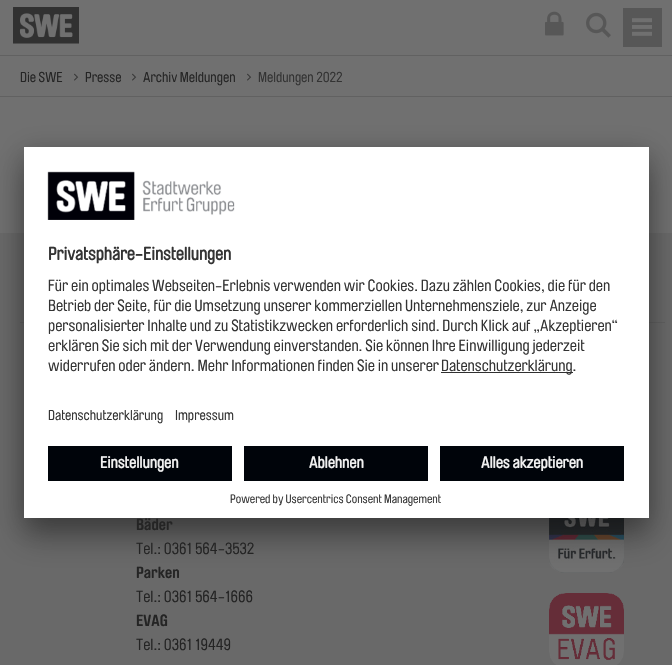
void draw(SkCanvas* canvas) {
	SkPaint paint;
	paint.setAntiAlias(true);
	canvas->clear(0xff707070);
	paint.setColor(0xff616161);
	canvas->drawRect(SkRect::MakeXYWH(0, 55, 672, 1), paint);
	canvas->drawImageRect(SkImages::DeferredFromEncodedData(SkData::MakeFromFileName("img1.png")), SkRect::MakeXYWH(13, 7, 66, 37), SkSamplingOptions());
	canvas->drawImageRect(SkImages::DeferredFromEncodedData(SkData::MakeFromFileName("img2.png")), SkRect::MakeXYWH(545, 11, 19, 25), SkSamplingOptions());
	canvas->drawImageRect(SkImages::DeferredFromEncodedData(SkData::MakeFromFileName("img3.png")), SkRect::MakeXYWH(586, 12, 25, 26), SkSamplingOptions());
	paint.setColor(0xff575757);
	canvas->drawRect(SkRect::MakeXYWH(623, 8, 39, 39), paint);
	canvas->drawImageRect(SkImages::DeferredFromEncodedData(SkData::MakeFromFileName("img4.png")), SkRect::MakeXYWH(632, 18, 20, 18), SkSamplingOptions());
	paint.setColor(0xff616161);
	canvas->drawRect(SkRect::MakeXYWH(0, 96, 672, 1), paint);
	SkFont f1(fontMgr->matchFamilyStyle("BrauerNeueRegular", SkFontStyle::Normal()), 14);
	f1.setSubpixel(true);
	paint.setColor(0xff242424);
	canvas->drawString("Die SWE", 20, 82, f1, paint);
	canvas->drawImageRect(SkImages::DeferredFromEncodedData(SkData::MakeFromFileName("img5.png")), SkRect::MakeXYWH(74, 73, 5, 8), SkSamplingOptions());
	canvas->drawString("Presse", 85, 82, f1, paint);
	canvas->drawImageRect(SkImages::DeferredFromEncodedData(SkData::MakeFromFileName("img5.png")), SkRect::MakeXYWH(132, 73, 5, 8), SkSamplingOptions());
	canvas->drawString("Archiv Meldungen", 143, 82, f1, paint);
	canvas->drawImageRect(SkImages::DeferredFromEncodedData(SkData::MakeFromFileName("img5.png")), SkRect::MakeXYWH(247, 73, 5, 8), SkSamplingOptions());
	paint.setColor(0xff333333);
	canvas->drawString("Meldungen 2022", 258, 82, f1, paint);
	paint.setColor(0xff696969);
	canvas->drawRect(SkRect::MakeXYWH(0, 233, 672, 432), paint);
	paint.setColor(0xff616161);
	canvas->drawRect(SkRect::MakeXYWH(20, 322, 4, 1), paint);
	canvas->drawRect(SkRect::MakeXYWH(649, 322, 16, 1), paint);
	canvas->drawImageRect(SkImages::DeferredFromEncodedData(SkData::MakeFromFileName("img7.png")), SkRect::MakeXYWH(549, 518, 75, 55), SkSamplingOptions());
	paint.setColor(0x4d000000);
	paint.setMaskFilter(SkMaskFilter::MakeBlur(kNormal_SkBlurStyle, 14));
	canvas->drawRect(SkRect::MakeXYWH(24, 167, 625, 371), paint);
	paint.setMaskFilter(nullptr);
	paint.setColor(0x38000000);
	paint.setMaskFilter(SkMaskFilter::MakeBlur(kNormal_SkBlurStyle, 13));
	canvas->drawRect(SkRect::MakeXYWH(24, 152, 625, 371), paint);
	paint.setMaskFilter(nullptr);
	paint.setColor(0xffffffff);
	canvas->drawRect(SkRect::MakeXYWH(24, 147, 625, 371), paint);
	canvas->drawImageRect(SkImages::DeferredFromEncodedData(SkData::MakeFromFileName("img6.png")), SkRect::MakeXYWH(47, 171, 188, 49), SkSamplingOptions());
	SkFont f2(fontMgr->matchFamilyStyle("BrauerNeueRegular", SkFontStyle::Bold()), 18);
	f2.setSubpixel(true);
	paint.setColor(0xff333333);
	canvas->drawString("Privatsphäre-Einstellungen", 48, 260, f2, paint);
	SkFont f3(fontMgr->matchFamilyStyle("BrauerNeueRegular", SkFontStyle::Normal()), 16);
	f3.setSubpixel(true);
	canvas->drawString("Für ein optimales Webseiten-Erlebnis verwenden wir Cookies. Dazu zählen Cookies, die für den", 48, 291, f3, paint);
	canvas->drawString("Betrieb der Seite, für die Umsetzung unserer kommerziellen Unternehmensziele, zur Anzeige", 48, 311, f3, paint);
	canvas->drawString("personalisierter Inhalte und zu Statistikzwecken erforderlich sind. Durch Klick auf „Akzeptieren“", 48, 331, f3, paint);
	canvas->drawString("erklären Sie sich mit der Verwendung einverstanden. Sie können Ihre Einwilligung jederzeit", 48, 351, f3, paint);
	canvas->drawString("widerrufen oder ändern. Mehr Informationen finden Sie in unserer", 48, 371, f3, paint);
	paint.setColor(0xff303030);
	canvas->drawRect(SkRect::MakeXYWH(441, 372, 132, 1), paint);
	paint.setColor(0xff333333);
	canvas->drawString("Datenschutzerklärung.", 441, 371, f3, paint);
	canvas->drawString("Datenschutzerklärung", 48, 420, f1, paint);
	canvas->drawString("Impressum", 175, 420, f1, paint);
	paint.setColor(0xff00040a);
	canvas->drawRect(SkRect::MakeXYWH(48, 446, 184, 35), paint);
	SkFont f4(fontMgr->matchFamilyStyle("BrauerNeueRegular", SkFontStyle::Bold()), 16);
	f4.setSubpixel(true);
	paint.setColor(0xfff1f1f1);
	canvas->drawString("Einstellungen", 100, 468, f4, paint);
	paint.setColor(0xff00040a);
	canvas->drawRect(SkRect::MakeXYWH(244, 446, 184, 35), paint);
	paint.setColor(0xfff1f1f1);
	canvas->drawString("Ablehnen", 309, 468, f4, paint);
	paint.setColor(0xff00040a);
	canvas->drawRect(SkRect::MakeXYWH(440, 446, 184, 35), paint);
	paint.setColor(0xfff1f1f1);
	canvas->drawString("Alles akzeptieren", 481, 468, f4, paint);
	SkFont f5(fontMgr->matchFamilyStyle("BrauerNeueRegular", SkFontStyle::Normal()), 12);
	f5.setSubpixel(true);
	paint.setColor(0xff333333);
	canvas->drawString("Powered by Usercentrics Consent Management", 230, 503, f5, paint);
	SkFont f6(fontMgr->matchFamilyStyle("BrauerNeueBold", SkFontStyle::Bold()), 16);
	f6.setSubpixel(true);
	paint.setColor(0xff242424);
	canvas->drawString("Bäder", 136, 530, f6, paint);
	canvas->drawString("Tel.: 0361 564-3532", 136, 554, f3, paint);
	canvas->drawString("Parken", 136, 578, f6, paint);
	canvas->drawString("Tel.: 0361 564-1666", 136, 602, f3, paint);
	canvas->drawString("EVAG", 136, 626, f6, paint);
	canvas->drawString("Tel.: 0361 19449", 136, 650, f3, paint);
	canvas->drawImageRect(SkImages::DeferredFromEncodedData(SkData::MakeFromFileName("img8.png")), SkRect::MakeXYWH(549, 593, 75, 72), SkSamplingOptions());
}
